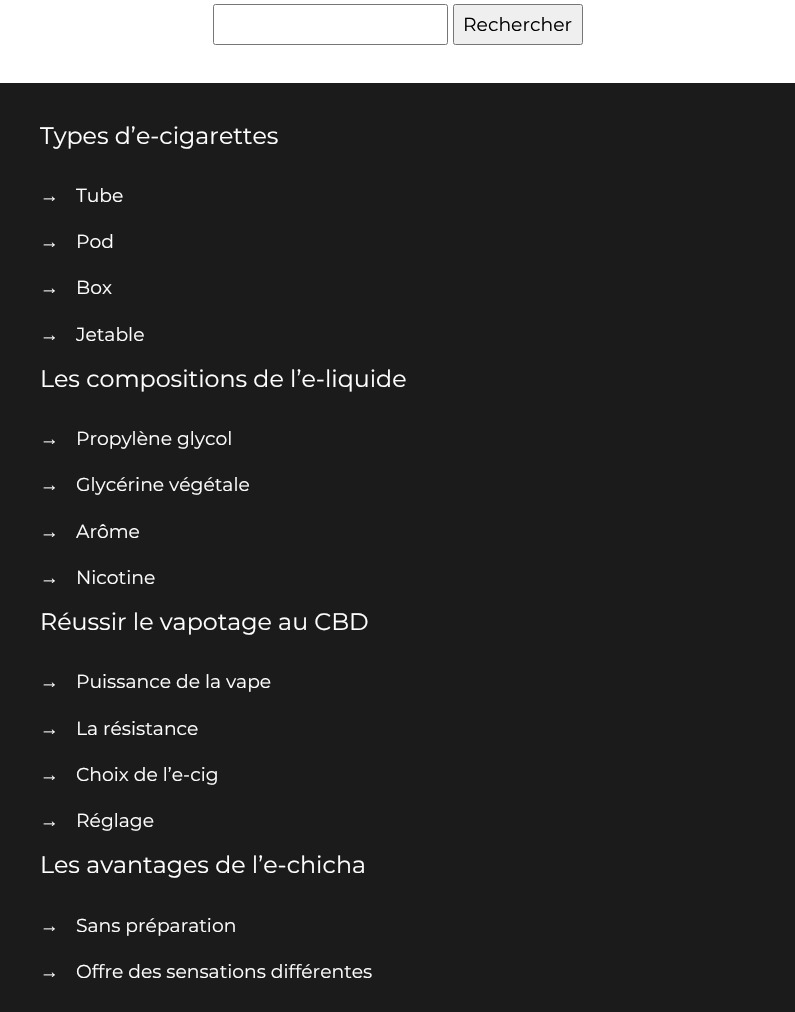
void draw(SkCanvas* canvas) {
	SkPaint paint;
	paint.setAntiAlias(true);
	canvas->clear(0xffffffff);
	paint.setStroke(true);
	paint.setStrokeWidth(1);
	paint.setColor(0xff767676);
	canvas->drawRoundRect(SkRect::MakeXYWH(213.5, 4.5, 234, 40), 2, 2, paint);
	paint.setStroke(false);
	paint.setColor(0xffefefef);
	canvas->drawRoundRect(SkRect::MakeXYWH(453.5, 4.5, 129, 40), 2, 2, paint);
	paint.setStroke(true);
	paint.setColor(0xff767676);
	canvas->drawRoundRect(SkRect::MakeXYWH(453.5, 4.5, 129, 40), 2, 2, paint);
	SkFont f1(fontMgr->matchFamilyStyle("Montserrat", SkFontStyle(100, SkFontStyle::kNormal_Width, SkFontStyle::kUpright_Slant)), 18.75);
	f1.setSubpixel(true);
	paint.setStroke(false);
	paint.setColor(0xff000000);
	canvas->drawString("Rechercher", 463, 31, f1, paint);
	paint.setColor(0xff1b1b1b);
	canvas->drawRect(SkRect::MakeXYWH(0, 83, 795, 929), paint);
	SkFont f2(fontMgr->matchFamilyStyle("Montserrat", SkFontStyle(100, SkFontStyle::kNormal_Width, SkFontStyle::kUpright_Slant)), 23.75);
	f2.setSubpixel(true);
	paint.setColor(0xffffffff);
	canvas->drawString("Types d’e-cigarettes", 40, 144, f2, paint);
	SkFont f3(fontMgr->matchFamilyStyle("Liberation Sans", SkFontStyle::Normal()), 18.75);
	f3.setSubpixel(true);
	canvas->drawString("→", 40, 202, f3, paint);
	canvas->drawString("Tube", 76, 202, f1, paint);
	canvas->drawString("→", 40, 248, f3, paint);
	canvas->drawString("Pod", 76, 248, f1, paint);
	canvas->drawString("→", 40, 294, f3, paint);
	canvas->drawString("Box", 76, 294, f1, paint);
	canvas->drawString("→", 40, 341, f3, paint);
	canvas->drawString("Jetable", 76, 341, f1, paint);
	canvas->drawString("Les compositions de l’e-liquide", 40, 387, f2, paint);
	canvas->drawString("→", 40, 445, f3, paint);
	canvas->drawString("Propylène glycol", 76, 445, f1, paint);
	canvas->drawString("→", 40, 491, f3, paint);
	canvas->drawString("Glycérine végétale", 76, 491, f1, paint);
	canvas->drawString("→", 40, 538, f3, paint);
	canvas->drawString("Arôme", 76, 538, f1, paint);
	canvas->drawString("→", 40, 584, f3, paint);
	canvas->drawString("Nicotine", 76, 584, f1, paint);
	canvas->drawString("Réussir le vapotage au CBD", 40, 630, f2, paint);
	canvas->drawString("→", 40, 688, f3, paint);
	canvas->drawString("Puissance de la vape", 76, 688, f1, paint);
	canvas->drawString("→", 40, 735, f3, paint);
	canvas->drawString("La résistance", 76, 735, f1, paint);
	canvas->drawString("→", 40, 781, f3, paint);
	canvas->drawString("Choix de l’e-cig", 76, 781, f1, paint);
	canvas->drawString("→", 40, 827, f3, paint);
	canvas->drawString("Réglage", 76, 827, f1, paint);
	canvas->drawString("Les avantages de l’e-chicha", 40, 873, f2, paint);
	canvas->drawString("→", 40, 932, f3, paint);
	canvas->drawString("Sans préparation", 76, 932, f1, paint);
	canvas->drawString("→", 40, 978, f3, paint);
	canvas->drawString("Offre des sensations différentes", 76, 978, f1, paint);
}
